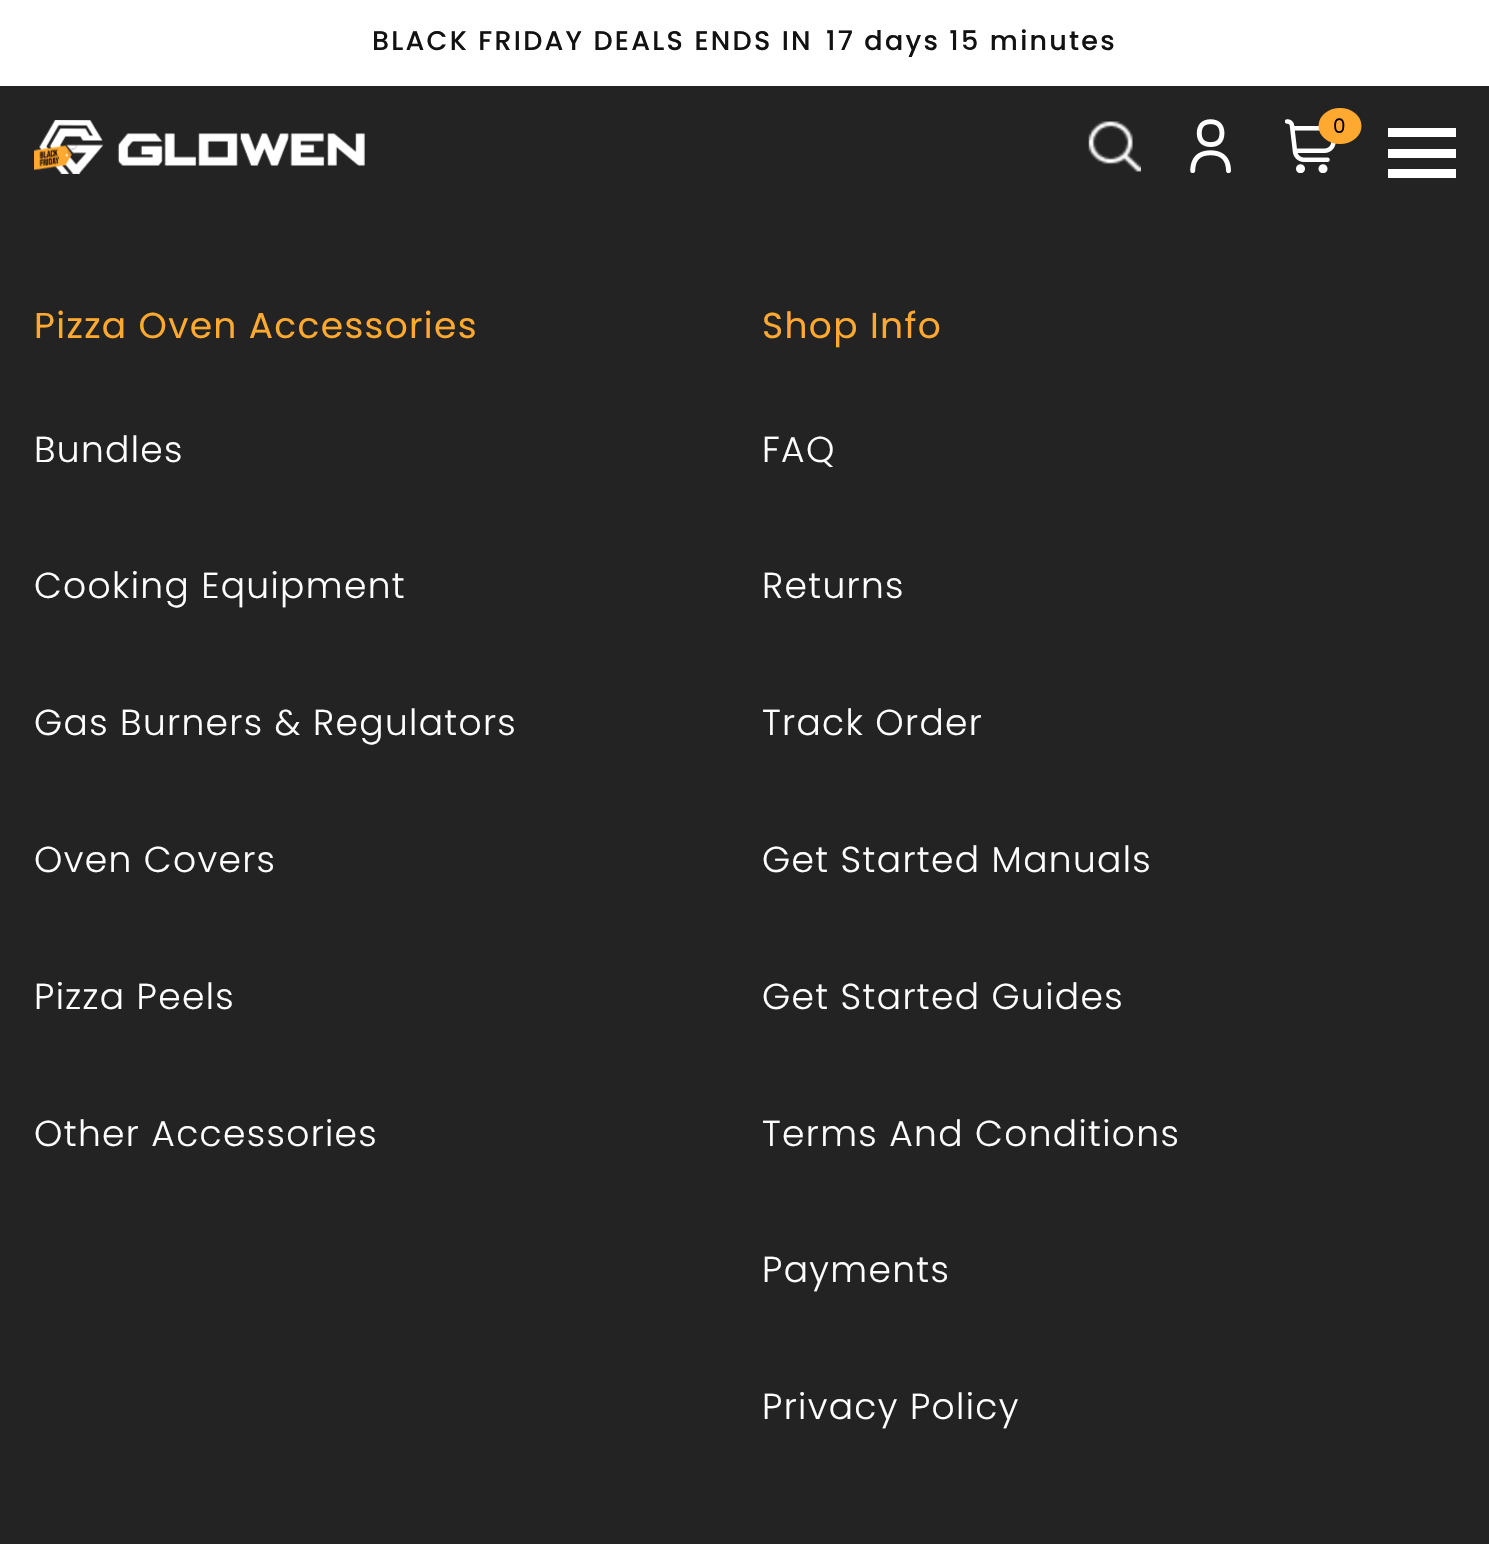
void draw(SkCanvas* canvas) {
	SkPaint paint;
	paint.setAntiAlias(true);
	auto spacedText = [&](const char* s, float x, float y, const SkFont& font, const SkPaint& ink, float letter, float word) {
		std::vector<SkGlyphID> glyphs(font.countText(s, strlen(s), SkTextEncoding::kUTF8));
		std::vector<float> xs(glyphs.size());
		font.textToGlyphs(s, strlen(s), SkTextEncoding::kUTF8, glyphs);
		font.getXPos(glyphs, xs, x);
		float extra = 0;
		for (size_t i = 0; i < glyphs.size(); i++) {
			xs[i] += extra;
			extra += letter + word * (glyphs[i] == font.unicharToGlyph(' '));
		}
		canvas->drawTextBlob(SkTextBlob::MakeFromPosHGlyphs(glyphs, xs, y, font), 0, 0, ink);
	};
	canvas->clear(0xff232323);
	paint.setColor(0xffffffff);
	canvas->drawRect(SkRect::MakeXYWH(0, 0, 1489, 86), paint);
	SkFont f1(fontMgr->matchFamilyStyle("Poppins", SkFontStyle(500, SkFontStyle::kNormal_Width, SkFontStyle::kUpright_Slant)), 27);
	f1.setSubpixel(true);
	paint.setColor(0xff121212);
	spacedText("BLACK FRIDAY DEALS ENDS IN", 372, 50, f1, paint, 2.25, 0);
	spacedText("17 days 15 minutes", 826, 50, f1, paint, 2.25, 0);
	canvas->drawImageRect(SkImages::DeferredFromEncodedData(SkData::MakeFromFileName("img1.png")), SkRect::MakeXYWH(34, 120, 331, 54), SkSamplingOptions());
	canvas->drawImageRect(SkImages::DeferredFromEncodedData(SkData::MakeFromFileName("img2.png")), SkRect::MakeXYWH(1088, 121, 53, 51), SkSamplingOptions());
	canvas->drawImageRect(SkImages::DeferredFromEncodedData(SkData::MakeFromFileName("img3.png")), SkRect::MakeXYWH(1190, 119, 41, 54), SkSamplingOptions());
	canvas->drawImageRect(SkImages::DeferredFromEncodedData(SkData::MakeFromFileName("img4.png")), SkRect::MakeXYWH(1285, 119, 51, 54), SkSamplingOptions());
	paint.setColor(0xffffa930);
	canvas->drawOval(SkRect::MakeXYWH(1318.5, 108, 43, 36), paint);
	SkFont f2(fontMgr->matchFamilyStyle("Poppins", SkFontStyle::Normal()), 20);
	f2.setSubpixel(true);
	paint.setColor(0xff000000);
	spacedText("0", 1333, 133, f2, paint, 1.35, 0);
	paint.setColor(0xffffffff);
	canvas->drawRect(SkRect::MakeXYWH(1388, 128, 68, 9), paint);
	canvas->drawRect(SkRect::MakeXYWH(1388, 149, 68, 9), paint);
	canvas->drawRect(SkRect::MakeXYWH(1388, 169, 68, 9), paint);
	SkFont f3(fontMgr->matchFamilyStyle("Poppins", SkFontStyle::Normal()), 36);
	f3.setSubpixel(true);
	paint.setColor(0xffffa930);
	spacedText("Pizza Oven Accessories", 34, 338, f3, paint, 1.35, 0);
	SkFont f4(fontMgr->matchFamilyStyle("Poppins", SkFontStyle(300, SkFontStyle::kNormal_Width, SkFontStyle::kUpright_Slant)), 36);
	f4.setSubpixel(true);
	paint.setColor(0xffffffff);
	spacedText("Bundles", 34, 462, f4, paint, 1.35, 0);
	spacedText("Cooking Equipment", 34, 598, f4, paint, 1.35, 0);
	spacedText("Gas Burners & Regulators", 34, 735, f4, paint, 1.35, 0);
	spacedText("Oven Covers", 34, 872, f4, paint, 1.35, 0);
	spacedText("Pizza Peels", 34, 1009, f4, paint, 1.35, 0);
	spacedText("Other Accessories", 34, 1146, f4, paint, 1.35, 0);
	paint.setColor(0xffffa930);
	spacedText("Shop Info", 762, 338, f3, paint, 1.35, 0);
	paint.setColor(0xffffffff);
	spacedText("FAQ", 762, 462, f4, paint, 1.35, 0);
	spacedText("Returns", 762, 598, f4, paint, 1.35, 0);
	spacedText("Track Order", 762, 735, f4, paint, 1.35, 0);
	spacedText("Get Started Manuals", 762, 872, f4, paint, 1.35, 0);
	spacedText("Get Started Guides", 762, 1009, f4, paint, 1.35, 0);
	spacedText("Terms And Conditions", 762, 1146, f4, paint, 1.35, 0);
	spacedText("Payments", 762, 1282, f4, paint, 1.35, 0);
	spacedText("Privacy Policy", 762, 1419, f4, paint, 1.35, 0);
}
